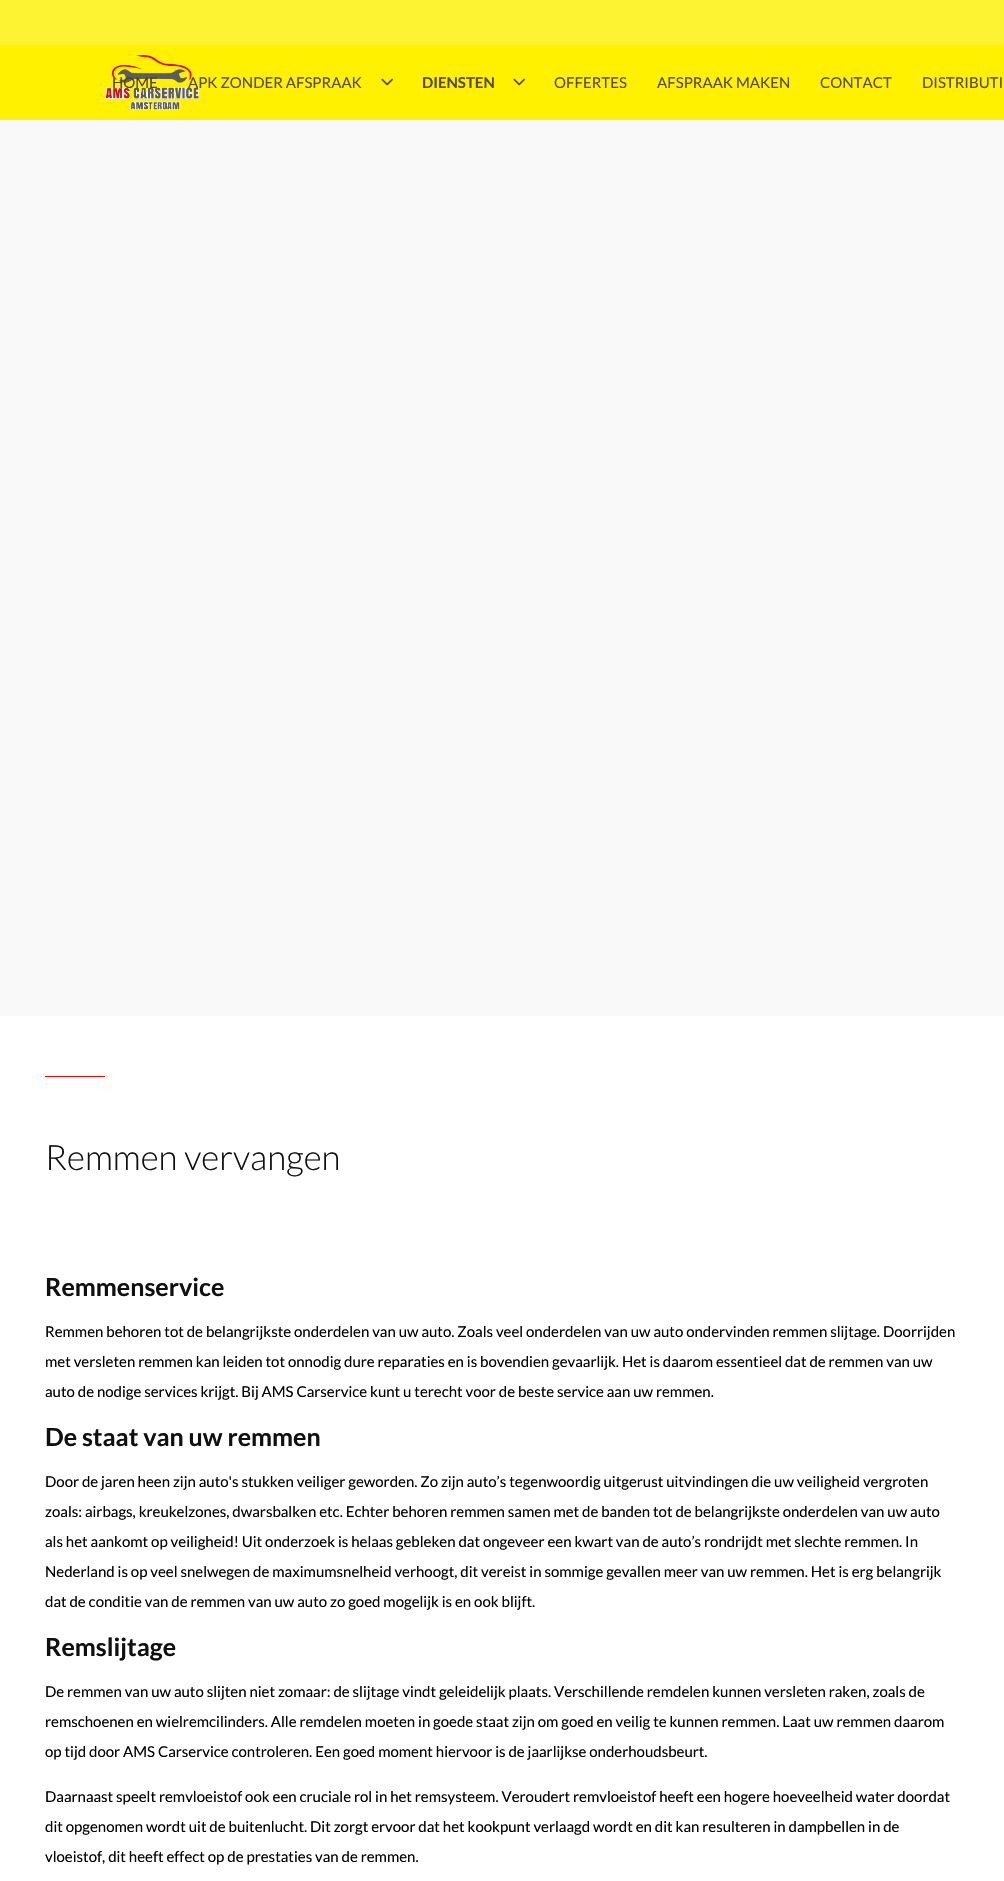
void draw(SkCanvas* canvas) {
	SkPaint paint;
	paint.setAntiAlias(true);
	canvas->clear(0xffffffff);
	paint.setColor(0xfffef332);
	canvas->drawRect(SkRect::MakeXYWH(0, 0, 1004, 45), paint);
	paint.setColor(0xfffff100);
	canvas->drawRect(SkRect::MakeXYWH(0, 45, 1004, 75), paint);
	canvas->drawImageRect(SkImages::DeferredFromEncodedData(SkData::MakeFromFileName("img1.png")), SkRect::MakeXYWH(105, 55, 94, 55), SkSamplingOptions());
	SkFont f1(fontMgr->matchFamilyStyle("Lato", SkFontStyle::Normal()), 15);
	f1.setSubpixel(true);
	paint.setColor(0xff4d431f);
	canvas->drawString("HOME", 112, 88, f1, paint);
	paint.setColor(0xff544a1a);
	canvas->drawString("APK ZONDER AFSPRAAK", 188, 88, f1, paint);
	canvas->drawImageRect(SkImages::DeferredFromEncodedData(SkData::MakeFromFileName("img2.png")), SkRect::MakeXYWH(381, 78, 12, 8), SkSamplingOptions());
	SkFont f2(fontMgr->matchFamilyStyle("Lato", SkFontStyle::Bold()), 15);
	f2.setSubpixel(true);
	canvas->drawString("DIENSTEN", 422, 88, f2, paint);
	canvas->drawImageRect(SkImages::DeferredFromEncodedData(SkData::MakeFromFileName("img2.png")), SkRect::MakeXYWH(513, 78, 12, 8), SkSamplingOptions());
	canvas->drawString("OFFERTES", 554, 88, f1, paint);
	canvas->drawString("AFSPRAAK MAKEN", 657, 88, f1, paint);
	canvas->drawString("CONTACT", 820, 88, f1, paint);
	canvas->drawString("DISTRIBUTI", 922, 88, f1, paint);
	paint.setColor(0xfff9f9f9);
	canvas->drawRect(SkRect::MakeXYWH(0, 120, 1004, 896), paint);
	paint.setColor(0xffff0505);
	canvas->drawRect(SkRect::MakeXYWH(45, 1076, 60, 1), paint);
	SkFont f3(fontMgr->matchFamilyStyle("Lato", SkFontStyle(300, SkFontStyle::kNormal_Width, SkFontStyle::kUpright_Slant)), 35);
	f3.setSubpixel(true);
	paint.setColor(0xff101010);
	canvas->drawString("Remmen vervangen", 45, 1170, f3, paint);
	SkFont f4(fontMgr->matchFamilyStyle("Lato", SkFontStyle::Bold()), 25);
	f4.setSubpixel(true);
	canvas->drawString("Remmenservice", 45, 1296, f4, paint);
	paint.setColor(0xff000000);
	canvas->drawString("Remmen behoren tot de belangrijkste onderdelen van uw auto. Zoals veel onderdelen van uw auto ondervinden remmen slijtage. Doorrijden", 45, 1337, f1, paint);
	canvas->drawString("met versleten remmen kan leiden tot onnodig dure reparaties en is bovendien gevaarlijk. Het is daarom essentieel dat de remmen van uw", 45, 1367, f1, paint);
	canvas->drawString("auto de nodige services krijgt. Bij AMS Carservice kunt u terecht voor de beste service aan uw remmen.", 45, 1397, f1, paint);
	paint.setColor(0xff101010);
	canvas->drawString("De staat van uw remmen", 45, 1446, f4, paint);
	paint.setColor(0xff000000);
	canvas->drawString("Door de jaren heen zijn auto's stukken veiliger geworden. Zo zijn auto’s tegenwoordig uitgerust uitvindingen die uw veiligheid vergroten", 45, 1487, f1, paint);
	canvas->drawString("zoals: airbags, kreukelzones, dwarsbalken etc. Echter behoren remmen samen met de banden tot de belangrijkste onderdelen van uw auto", 45, 1517, f1, paint);
	canvas->drawString("als het aankomt op veiligheid! Uit onderzoek is helaas gebleken dat ongeveer een kwart van de auto’s rondrijdt met slechte remmen. In", 45, 1547, f1, paint);
	canvas->drawString("Nederland is op veel snelwegen de maximumsnelheid verhoogt, dit vereist in sommige gevallen meer van uw remmen. Het is erg belangrijk", 45, 1577, f1, paint);
	canvas->drawString("dat de conditie van de remmen van uw auto zo goed mogelijk is en ook blijft.", 45, 1607, f1, paint);
	paint.setColor(0xff101010);
	canvas->drawString("Remslijtage", 45, 1656, f4, paint);
	paint.setColor(0xff000000);
	canvas->drawString("De remmen van uw auto slijten niet zomaar: de slijtage vindt geleidelijk plaats. Verschillende remdelen kunnen versleten raken, zoals de", 45, 1697, f1, paint);
	canvas->drawString("remschoenen en wielremcilinders. Alle remdelen moeten in goede staat zijn om goed en veilig te kunnen remmen. Laat uw remmen daarom", 45, 1727, f1, paint);
	canvas->drawString("op tijd door AMS Carservice controleren. Een goed moment hiervoor is de jaarlijkse onderhoudsbeurt.", 45, 1757, f1, paint);
	canvas->drawString("Daarnaast speelt remvloeistof ook een cruciale rol in het remsysteem. Veroudert remvloeistof heeft een hogere hoeveelheid water doordat", 45, 1802, f1, paint);
	canvas->drawString("dit opgenomen wordt uit de buitenlucht. Dit zorgt ervoor dat het kookpunt verlaagd wordt en dit kan resulteren in dampbellen in de", 45, 1832, f1, paint);
	canvas->drawString("vloeistof, dit heeft effect op de prestaties van de remmen.", 45, 1862, f1, paint);
}
